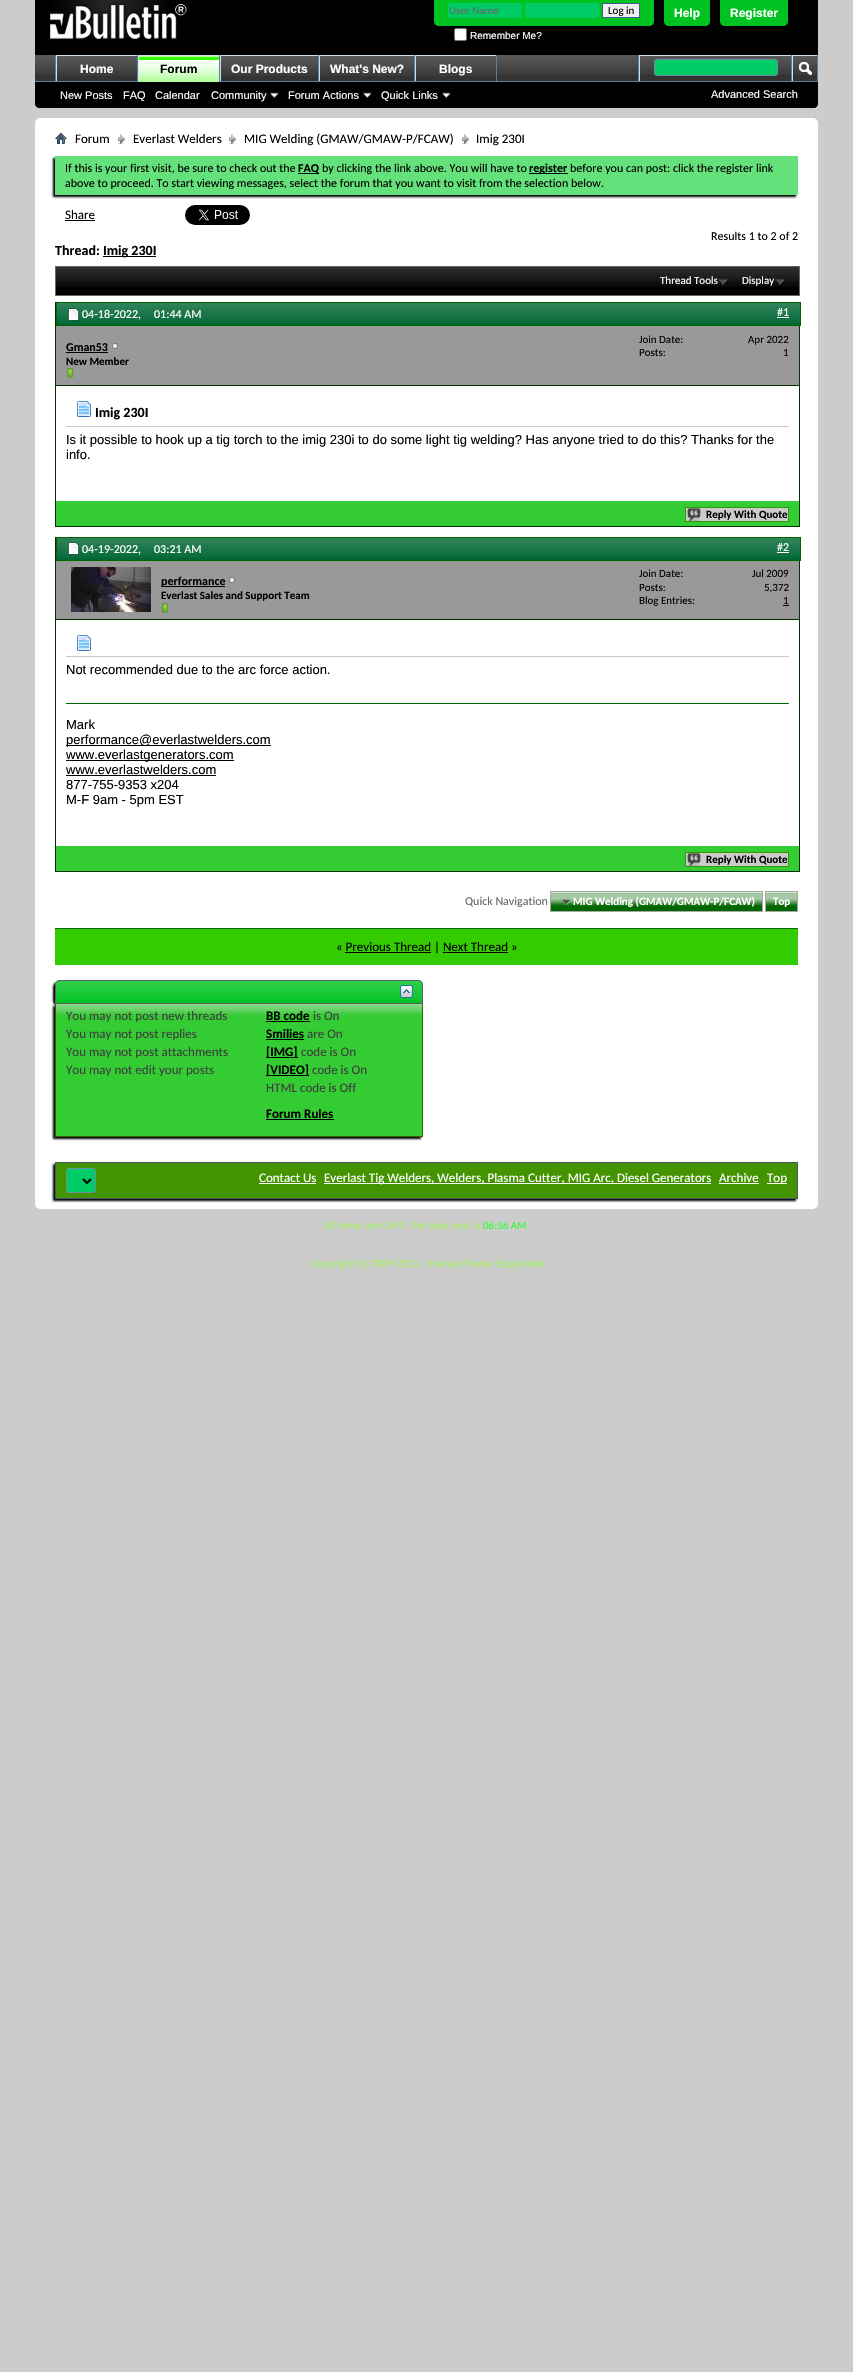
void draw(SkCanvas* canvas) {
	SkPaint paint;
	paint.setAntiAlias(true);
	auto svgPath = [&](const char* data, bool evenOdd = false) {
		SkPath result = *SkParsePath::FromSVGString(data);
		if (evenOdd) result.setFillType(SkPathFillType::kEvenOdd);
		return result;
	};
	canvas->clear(0xffcccccc);
	paint.setColor(0xff000000);
	canvas->drawPath(svgPath("M35 0H818V103C818 106 816 108 813 108H40C37 108 35 106 35 103Z"), paint);
	canvas->drawImageRect(SkImages::DeferredFromEncodedData(SkData::MakeFromFileName("img1.png")), SkRect::MakeXYWH(50, 0, 137, 39), SkSamplingOptions());
	paint.setColor(0xff00c322);
	canvas->drawPath(svgPath("M434 0H654V21C654 24 652 26 649 26H439C436 26 434 24 434 21Z"), paint);
	paint.setColor(0xff00cc66);
	canvas->drawRoundRect(SkRect::MakeXYWH(448, 3, 74, 15), 3, 3, paint);
	SkFont f1(fontMgr->matchFamilyStyle("Carlito", SkFontStyle::Normal()), 11);
	f1.setSubpixel(true);
	paint.setColor(0xff666666);
	canvas->drawString("User Name", 449, 14, f1, paint);
	paint.setColor(0xff00cc66);
	canvas->drawRoundRect(SkRect::MakeXYWH(525, 3, 74, 15), 3, 3, paint);
	paint.setColor(0xffefefef);
	canvas->drawRect(SkRect::MakeXYWH(602.5, 3.5, 37, 14), paint);
	paint.setStroke(true);
	paint.setStrokeWidth(1);
	paint.setColor(0xff415d8d);
	canvas->drawRect(SkRect::MakeXYWH(602.5, 3.5, 37, 14), paint);
	paint.setStroke(false);
	paint.setColor(0xff000000);
	canvas->drawString("Log in", 608, 14, f1, paint);
	paint.setColor(0xffffffff);
	canvas->drawRoundRect(SkRect::MakeXYWH(454.5, 28.5, 12, 12), 1.5, 1.5, paint);
	paint.setStroke(true);
	paint.setColor(0xff767676);
	canvas->drawRoundRect(SkRect::MakeXYWH(454.5, 28.5, 12, 12), 1.5, 1.5, paint);
	SkFont f2(fontMgr->matchFamilyStyle("Liberation Sans", SkFontStyle::Normal()), 10);
	f2.setSubpixel(true);
	paint.setStroke(false);
	paint.setColor(0xffffffff);
	canvas->drawString("Remember Me?", 470, 39, f2, paint);
	paint.setColor(0xff00c322);
	canvas->drawPath(svgPath("M664 0H710V21C710 24 708 26 705 26H669C666 26 664 24 664 21Z"), paint);
	SkFont f3(fontMgr->matchFamilyStyle("Liberation Sans", SkFontStyle::Bold()), 12);
	f3.setSubpixel(true);
	paint.setColor(0xffffffff);
	canvas->drawString("Help", 674, 17, f3, paint);
	paint.setColor(0xff00c322);
	canvas->drawPath(svgPath("M720 0H788V21C788 24 786 26 783 26H725C722 26 720 24 720 21Z"), paint);
	paint.setColor(0xffffffff);
	canvas->drawString("Register", 730, 17, f3, paint);
	paint.setColor(0xff000000);
	canvas->drawPath(svgPath("M35 55H818V103C818 106 816 108 813 108H40C37 108 35 106 35 103Z"), paint);
	paint.setColor(0xff333333);
	canvas->drawRect(SkRect::MakeXYWH(35, 55, 782, 26), paint);
	canvas->drawImageRect(SkImages::DeferredFromEncodedData(SkData::MakeFromFileName("img2.png")), SkRect::MakeXYWH(35, 55, 782, 20), SkSamplingOptions());
	paint.setColor(0xff5a7f97);
	canvas->drawRect(SkRect::MakeXYWH(137, 55, 1, 27), paint);
	canvas->drawRect(SkRect::MakeXYWH(55, 55, 1, 27), paint);
	paint.setColor(0xff333333);
	canvas->drawRect(SkRect::MakeXYWH(57, 56, 80, 19), paint);
	canvas->drawImageRect(SkImages::DeferredFromEncodedData(SkData::MakeFromFileName("img3.png")), SkRect::MakeXYWH(57, 56, 80, 20), SkSamplingOptions());
	paint.setColor(0xffcedfeb);
	canvas->drawRect(SkRect::MakeXYWH(56, 55, 81, 1), paint);
	canvas->drawRect(SkRect::MakeXYWH(56, 55, 1, 27), paint);
	paint.setColor(0xffffffff);
	canvas->drawString("Home", 80, 73, f3, paint);
	paint.setColor(0xff5a7f97);
	canvas->drawRect(SkRect::MakeXYWH(219, 55, 1, 26), paint);
	canvas->drawRect(SkRect::MakeXYWH(318, 55, 1, 27), paint);
	paint.setColor(0xffcedfeb);
	canvas->drawRect(SkRect::MakeXYWH(220, 55, 98, 1), paint);
	canvas->drawRect(SkRect::MakeXYWH(220, 55, 1, 27), paint);
	paint.setColor(0xff5a7f97);
	canvas->drawRect(SkRect::MakeXYWH(414, 55, 1, 27), paint);
	paint.setColor(0xffcedfeb);
	canvas->drawRect(SkRect::MakeXYWH(319, 55, 95, 1), paint);
	canvas->drawRect(SkRect::MakeXYWH(319, 55, 1, 27), paint);
	paint.setColor(0xff5a7f97);
	canvas->drawRect(SkRect::MakeXYWH(496, 55, 1, 27), paint);
	paint.setColor(0xffcedfeb);
	canvas->drawRect(SkRect::MakeXYWH(415, 55, 81, 1), paint);
	canvas->drawRect(SkRect::MakeXYWH(415, 55, 1, 27), paint);
	paint.setColor(0xff5a7f97);
	canvas->drawRect(SkRect::MakeXYWH(35, 81, 783, 1), paint);
	paint.setColor(0xff33ff00);
	canvas->drawRect(SkRect::MakeXYWH(139, 56, 80, 26), paint);
	canvas->drawImageRect(SkImages::DeferredFromEncodedData(SkData::MakeFromFileName("img4.png")), SkRect::MakeXYWH(139, 56, 80, 26), SkSamplingOptions());
	paint.setColor(0xffcedfeb);
	canvas->drawRect(SkRect::MakeXYWH(138, 55, 81, 1), paint);
	canvas->drawRect(SkRect::MakeXYWH(138, 55, 1, 27), paint);
	paint.setColor(0xff000000);
	canvas->drawString("Forum", 160, 73, f3, paint);
	paint.setColor(0xff333333);
	canvas->drawRect(SkRect::MakeXYWH(221, 56, 97, 19), paint);
	canvas->drawImageRect(SkImages::DeferredFromEncodedData(SkData::MakeFromFileName("img5.png")), SkRect::MakeXYWH(221, 56, 97, 20), SkSamplingOptions());
	paint.setColor(0xffffffff);
	canvas->drawString("Our Products", 231, 73, f3, paint);
	paint.setColor(0xff333333);
	canvas->drawRect(SkRect::MakeXYWH(320, 56, 94, 19), paint);
	canvas->drawImageRect(SkImages::DeferredFromEncodedData(SkData::MakeFromFileName("img6.png")), SkRect::MakeXYWH(320, 56, 94, 20), SkSamplingOptions());
	paint.setColor(0xffffffff);
	canvas->drawString("What's New?", 330, 73, f3, paint);
	paint.setColor(0xff333333);
	canvas->drawRect(SkRect::MakeXYWH(416, 56, 80, 19), paint);
	canvas->drawImageRect(SkImages::DeferredFromEncodedData(SkData::MakeFromFileName("img3.png")), SkRect::MakeXYWH(416, 56, 80, 20), SkSamplingOptions());
	paint.setColor(0xffffffff);
	canvas->drawString("Blogs", 439, 73, f3, paint);
	SkFont f4(fontMgr->matchFamilyStyle("Liberation Sans", SkFontStyle::Normal()), 11);
	f4.setSubpixel(true);
	canvas->drawString("New Posts", 60, 99, f4, paint);
	canvas->drawString("FAQ", 123, 99, f4, paint);
	canvas->drawString("Calendar", 155, 99, f4, paint);
	canvas->drawString("Community", 211, 99, f4, paint);
	canvas->drawImageRect(SkImages::DeferredFromEncodedData(SkData::MakeFromFileName("img7.png")), SkRect::MakeXYWH(270, 92, 9, 6), SkSamplingOptions());
	canvas->drawString("Forum Actions", 288, 99, f4, paint);
	canvas->drawImageRect(SkImages::DeferredFromEncodedData(SkData::MakeFromFileName("img7.png")), SkRect::MakeXYWH(363, 92, 9, 6), SkSamplingOptions());
	canvas->drawString("Quick Links", 381, 99, f4, paint);
	canvas->drawImageRect(SkImages::DeferredFromEncodedData(SkData::MakeFromFileName("img7.png")), SkRect::MakeXYWH(442, 92, 9, 6), SkSamplingOptions());
	paint.setColor(0xff5a7f97);
	canvas->drawRect(SkRect::MakeXYWH(638, 55, 1, 26), paint);
	paint.setColor(0xffcedfeb);
	canvas->drawRect(SkRect::MakeXYWH(639, 55, 152, 1), paint);
	canvas->drawRect(SkRect::MakeXYWH(639, 55, 1, 26), paint);
	paint.setColor(0xff00cc66);
	canvas->drawRoundRect(SkRect::MakeXYWH(654.5, 59.5, 123, 16), 2.5, 2.5, paint);
	paint.setStroke(true);
	paint.setColor(0xff6b91ab);
	canvas->drawRoundRect(SkRect::MakeXYWH(654.5, 59.5, 123, 16), 2.5, 2.5, paint);
	paint.setStroke(false);
	paint.setColor(0xff5a7f97);
	canvas->drawRect(SkRect::MakeXYWH(817, 55, 1, 26), paint);
	canvas->drawRect(SkRect::MakeXYWH(791, 55, 1, 26), paint);
	paint.setColor(0xffcedfeb);
	canvas->drawRect(SkRect::MakeXYWH(792, 55, 25, 1), paint);
	canvas->drawRect(SkRect::MakeXYWH(792, 55, 1, 26), paint);
	canvas->drawImageRect(SkImages::DeferredFromEncodedData(SkData::MakeFromFileName("img8.png")), SkRect::MakeXYWH(799, 62, 13, 14), SkSamplingOptions());
	paint.setColor(0xffffffff);
	canvas->drawString("Advanced Search", 711, 98, f4, paint);
	canvas->drawRoundRect(SkRect::MakeXYWH(35, 118, 783, 1091), 5, 5, paint);
	canvas->drawImageRect(SkImages::DeferredFromEncodedData(SkData::MakeFromFileName("img9.png")), SkRect::MakeXYWH(55, 133, 12, 11), SkSamplingOptions());
	canvas->drawImageRect(SkImages::DeferredFromEncodedData(SkData::MakeFromFileName("img10.png")), SkRect::MakeXYWH(118, 134, 7, 10), SkSamplingOptions());
	SkFont f5(fontMgr->matchFamilyStyle("Carlito", SkFontStyle::Normal()), 13);
	f5.setSubpixel(true);
	paint.setColor(0xff000000);
	canvas->drawString("Forum", 75, 143, f5, paint);
	canvas->drawImageRect(SkImages::DeferredFromEncodedData(SkData::MakeFromFileName("img10.png")), SkRect::MakeXYWH(229, 134, 7, 10), SkSamplingOptions());
	canvas->drawString("Everlast Welders", 133, 143, f5, paint);
	canvas->drawImageRect(SkImages::DeferredFromEncodedData(SkData::MakeFromFileName("img10.png")), SkRect::MakeXYWH(462, 134, 7, 10), SkSamplingOptions());
	canvas->drawString("MIG Welding (GMAW/GMAW-P/FCAW)", 244, 143, f5, paint);
	canvas->drawString("Imig 230I", 476, 143, f5, paint);
	paint.setMaskFilter(SkMaskFilter::MakeBlur(kNormal_SkBlurStyle, 1));
	canvas->drawRect(SkRect::MakeXYWH(53, 158, 743, 39), paint);
	paint.setMaskFilter(nullptr);
	paint.setColor(0xff65e17b);
	canvas->drawRect(SkRect::MakeXYWH(55, 156, 743, 39), paint);
	SkFont f6(fontMgr->matchFamilyStyle("Carlito", SkFontStyle::Normal()), 12);
	f6.setSubpixel(true);
	paint.setColor(0xff000000);
	canvas->drawString("If this is your first visit, be sure to check out the", 65, 172, f6, paint);
	canvas->drawRect(SkRect::MakeXYWH(298, 173, 21, 1), paint);
	SkFont f7(fontMgr->matchFamilyStyle("Carlito", SkFontStyle::Bold()), 12);
	f7.setSubpixel(true);
	canvas->drawString("FAQ", 298, 172, f7, paint);
	canvas->drawString("by clicking the link above. You will have to", 322, 172, f6, paint);
	canvas->drawRect(SkRect::MakeXYWH(529, 173, 39, 1), paint);
	canvas->drawString("register", 529, 172, f7, paint);
	canvas->drawString("before you can post: click the register link", 570, 172, f6, paint);
	canvas->drawString("above to proceed. To start viewing messages, select the forum that you want to visit from the selection below.", 65, 187, f6, paint);
	canvas->drawString("Share", 65, 219, f5, paint);
	canvas->drawRect(SkRect::MakeXYWH(65, 220, 30, 1), paint);
	canvas->drawImageRect(SkImages::DeferredFromEncodedData(SkData::MakeFromFileName("img11.png")), SkRect::MakeXYWH(185, 205, 65, 20), SkSamplingOptions());
	canvas->drawString("Results 1 to 2 of 2", 711, 240, f6, paint);
	SkFont f8(fontMgr->matchFamilyStyle("Carlito", SkFontStyle::Bold()), 14);
	f8.setSubpixel(true);
	canvas->drawString("Thread:", 55, 255, f8, paint);
	canvas->drawRect(SkRect::MakeXYWH(103, 256, 53, 1), paint);
	canvas->drawString("Imig 230I", 103, 255, f8, paint);
	canvas->drawRect(SkRect::MakeXYWH(56, 267, 743, 28), paint);
	canvas->drawImageRect(SkImages::DeferredFromEncodedData(SkData::MakeFromFileName("img12.png")), SkRect::MakeXYWH(56, 267, 743, 20), SkSamplingOptions());
	paint.setStroke(true);
	paint.setColor(0xff666666);
	canvas->drawRect(SkRect::MakeXYWH(55.5, 266.5, 744, 29), paint);
	canvas->drawImageRect(SkImages::DeferredFromEncodedData(SkData::MakeFromFileName("img13.png")), SkRect::MakeXYWH(718, 278, 9, 7), SkSamplingOptions());
	paint.setStroke(false);
	paint.setColor(0xffffffff);
	canvas->drawString("Thread Tools", 660, 284, f1, paint);
	canvas->drawImageRect(SkImages::DeferredFromEncodedData(SkData::MakeFromFileName("img13.png")), SkRect::MakeXYWH(775, 278, 9, 7), SkSamplingOptions());
	canvas->drawString("Display", 742, 284, f1, paint);
	paint.setStroke(true);
	paint.setColor(0xff003300);
	canvas->drawRect(SkRect::MakeXYWH(55.5, 302.5, 744, 224), paint);
	paint.setStroke(false);
	paint.setColor(0xff006633);
	canvas->drawRect(SkRect::MakeXYWH(57, 303, 743, 22), paint);
	canvas->drawImageRect(SkImages::DeferredFromEncodedData(SkData::MakeFromFileName("img14.png")), SkRect::MakeXYWH(57, 303, 743, 20), SkSamplingOptions());
	paint.setStroke(true);
	paint.setColor(0xff006600);
	canvas->drawRect(SkRect::MakeXYWH(56.5, 302.5, 744, 23), paint);
	canvas->drawImageRect(SkImages::DeferredFromEncodedData(SkData::MakeFromFileName("img15.png")), SkRect::MakeXYWH(68, 308, 11, 13), SkSamplingOptions());
	paint.setStroke(false);
	paint.setColor(0xffffffff);
	canvas->drawString("04-18-2022,", 82, 318, f6, paint);
	canvas->drawString("01:44 AM", 154, 318, f6, paint);
	canvas->drawString("#1", 777, 316, f6, paint);
	canvas->drawRect(SkRect::MakeXYWH(777, 317, 12, 1), paint);
	paint.setColor(0xff999999);
	canvas->drawRect(SkRect::MakeXYWH(56, 326, 743, 59), paint);
	paint.setColor(0xff003300);
	canvas->drawRect(SkRect::MakeXYWH(56, 385, 743, 1), paint);
	paint.setColor(0xff000000);
	canvas->drawString("Gman53", 66, 351, f7, paint);
	canvas->drawRect(SkRect::MakeXYWH(66, 352, 42, 1), paint);
	canvas->drawImageRect(SkImages::DeferredFromEncodedData(SkData::MakeFromFileName("img16.png")), SkRect::MakeXYWH(112, 343, 6, 6), SkSamplingOptions());
	SkFont f9(fontMgr->matchFamilyStyle("Carlito", SkFontStyle::Bold()), 11);
	f9.setSubpixel(true);
	canvas->drawString("New Member", 66, 365, f9, paint);
	canvas->drawImageRect(SkImages::DeferredFromEncodedData(SkData::MakeFromFileName("img17.png")), SkRect::MakeXYWH(66, 368, 7, 10), SkSamplingOptions());
	canvas->drawString("Join Date:", 639, 343, f1, paint);
	canvas->drawString("Apr 2022", 748, 343, f1, paint);
	canvas->drawString("Posts:", 639, 356, f1, paint);
	canvas->drawString("1", 783, 356, f1, paint);
	paint.setColor(0xffc8c8c8);
	canvas->drawRect(SkRect::MakeXYWH(66, 426, 723, 1), paint);
	canvas->drawImageRect(SkImages::DeferredFromEncodedData(SkData::MakeFromFileName("img18.png")), SkRect::MakeXYWH(77, 401, 14, 16), SkSamplingOptions());
	paint.setColor(0xff000000);
	canvas->drawString("Imig 230I", 95, 417, f8, paint);
	SkFont f10(fontMgr->matchFamilyStyle("Liberation Sans", SkFontStyle::Normal()), 13);
	f10.setSubpixel(true);
	canvas->drawString("Is it possible to hook up a tig torch to the imig 230i to do some light tig welding? Has anyone tried to do this? Thanks for the", 66, 444, f10, paint);
	canvas->drawString("info.", 66, 459, f10, paint);
	paint.setColor(0xff33cc33);
	canvas->drawRect(SkRect::MakeXYWH(56, 501, 743, 25), paint);
	paint.setColor(0xffcccccc);
	canvas->drawRect(SkRect::MakeXYWH(686, 508, 102, 13), paint);
	canvas->drawImageRect(SkImages::DeferredFromEncodedData(SkData::MakeFromFileName("img19.png")), SkRect::MakeXYWH(687, 508, 14, 13), SkSamplingOptions());
	paint.setStroke(true);
	paint.setColor(0xff339900);
	canvas->drawRect(SkRect::MakeXYWH(685.5, 507.5, 103, 14), paint);
	paint.setStroke(false);
	paint.setColor(0xff000000);
	canvas->drawString("Reply With Quote", 706, 518, f9, paint);
	paint.setStroke(true);
	paint.setColor(0xff003300);
	canvas->drawRect(SkRect::MakeXYWH(55.5, 537.5, 744, 334), paint);
	paint.setStroke(false);
	paint.setColor(0xff006633);
	canvas->drawRect(SkRect::MakeXYWH(57, 538, 743, 22), paint);
	canvas->drawImageRect(SkImages::DeferredFromEncodedData(SkData::MakeFromFileName("img14.png")), SkRect::MakeXYWH(57, 538, 743, 20), SkSamplingOptions());
	paint.setStroke(true);
	paint.setColor(0xff006600);
	canvas->drawRect(SkRect::MakeXYWH(56.5, 537.5, 744, 23), paint);
	canvas->drawImageRect(SkImages::DeferredFromEncodedData(SkData::MakeFromFileName("img20.png")), SkRect::MakeXYWH(68, 542, 11, 13), SkSamplingOptions());
	paint.setStroke(false);
	paint.setColor(0xffffffff);
	canvas->drawString("04-19-2022,", 82, 553, f6, paint);
	canvas->drawString("03:21 AM", 154, 553, f6, paint);
	canvas->drawString("#2", 777, 551, f6, paint);
	canvas->drawRect(SkRect::MakeXYWH(777, 552, 12, 1), paint);
	paint.setColor(0xff999999);
	canvas->drawRect(SkRect::MakeXYWH(56, 561, 743, 58), paint);
	paint.setColor(0xff003300);
	canvas->drawRect(SkRect::MakeXYWH(56, 619, 743, 1), paint);
	canvas->drawImageRect(SkImages::DeferredFromEncodedData(SkData::MakeFromFileName("img21.png")), SkRect::MakeXYWH(71, 567, 80, 45), SkSamplingOptions());
	paint.setColor(0xff000000);
	canvas->drawRect(SkRect::MakeXYWH(161, 586, 64, 1), paint);
	canvas->drawString("performance", 161, 585, f7, paint);
	canvas->drawImageRect(SkImages::DeferredFromEncodedData(SkData::MakeFromFileName("img16.png")), SkRect::MakeXYWH(229, 577, 6, 6), SkSamplingOptions());
	canvas->drawString("Everlast Sales and Support Team", 161, 599, f9, paint);
	canvas->drawImageRect(SkImages::DeferredFromEncodedData(SkData::MakeFromFileName("img17.png")), SkRect::MakeXYWH(161, 603, 7, 10), SkSamplingOptions());
	canvas->drawString("Join Date:", 639, 577, f1, paint);
	canvas->drawString("Jul 2009", 752, 577, f1, paint);
	canvas->drawString("Posts:", 639, 591, f1, paint);
	canvas->drawString("5,372", 764, 591, f1, paint);
	canvas->drawString("Blog Entries:", 639, 604, f1, paint);
	canvas->drawString("1", 783, 604, f1, paint);
	canvas->drawRect(SkRect::MakeXYWH(783, 605, 6, 1), paint);
	paint.setColor(0xffc8c8c8);
	canvas->drawRect(SkRect::MakeXYWH(66, 656, 723, 1), paint);
	canvas->drawImageRect(SkImages::DeferredFromEncodedData(SkData::MakeFromFileName("img18.png")), SkRect::MakeXYWH(77, 635, 14, 16), SkSamplingOptions());
	paint.setColor(0xff000000);
	canvas->drawString("Not recommended due to the arc force action.", 66, 674, f10, paint);
	paint.setColor(0xff006600);
	canvas->drawRect(SkRect::MakeXYWH(66, 703, 723, 1), paint);
	paint.setColor(0xff000000);
	canvas->drawString("Mark", 66, 729, f10, paint);
	canvas->drawRect(SkRect::MakeXYWH(66, 745, 205, 1), paint);
	canvas->drawString("performance@everlastwelders.com", 66, 744, f10, paint);
	canvas->drawRect(SkRect::MakeXYWH(66, 760, 168, 1), paint);
	canvas->drawString("www.everlastgenerators.com", 66, 759, f10, paint);
	canvas->drawString("www.everlastwelders.com", 66, 774, f10, paint);
	canvas->drawRect(SkRect::MakeXYWH(66, 775, 150, 1), paint);
	canvas->drawString("877-755-9353 x204", 66, 789, f10, paint);
	canvas->drawString("M-F 9am - 5pm EST", 66, 804, f10, paint);
	paint.setColor(0xff33cc33);
	canvas->drawRect(SkRect::MakeXYWH(56, 846, 743, 25), paint);
	paint.setColor(0xffcccccc);
	canvas->drawRect(SkRect::MakeXYWH(686, 853, 102, 13), paint);
	canvas->drawImageRect(SkImages::DeferredFromEncodedData(SkData::MakeFromFileName("img19.png")), SkRect::MakeXYWH(687, 853, 14, 13), SkSamplingOptions());
	paint.setStroke(true);
	paint.setColor(0xff339900);
	canvas->drawRect(SkRect::MakeXYWH(685.5, 852.5, 103, 14), paint);
	paint.setStroke(false);
	paint.setColor(0xff000000);
	canvas->drawString("Reply With Quote", 706, 863, f9, paint);
	paint.setColor(0xff666666);
	canvas->drawString("Quick Navigation", 465, 905, f6, paint);
	paint.setColor(0xff006600);
	canvas->drawRect(SkRect::MakeXYWH(551, 892, 211, 19), paint);
	canvas->drawImageRect(SkImages::DeferredFromEncodedData(SkData::MakeFromFileName("img22.png")), SkRect::MakeXYWH(551, 892, 211, 14), SkSamplingOptions());
	canvas->drawRect(SkRect::MakeXYWH(766, 892, 31, 19), paint);
	canvas->drawImageRect(SkImages::DeferredFromEncodedData(SkData::MakeFromFileName("img23.png")), SkRect::MakeXYWH(766, 892, 31, 14), SkSamplingOptions());
	paint.setStroke(true);
	paint.setColor(0xffa8a8a8);
	canvas->drawRect(SkRect::MakeXYWH(550.5, 891.5, 212, 20), paint);
	canvas->drawImageRect(SkImages::DeferredFromEncodedData(SkData::MakeFromFileName("img24.png")), SkRect::MakeXYWH(562, 899, 9, 6), SkSamplingOptions());
	paint.setStroke(false);
	paint.setColor(0xffffffff);
	canvas->drawString("MIG Welding (GMAW/GMAW-P/FCAW)", 573, 905, f9, paint);
	paint.setStroke(true);
	paint.setColor(0xffa8a8a8);
	canvas->drawRect(SkRect::MakeXYWH(765.5, 891.5, 32, 20), paint);
	paint.setStroke(false);
	paint.setColor(0xffffffff);
	canvas->drawString("Top", 773, 905, f9, paint);
	paint.setColor(0xff33cc00);
	canvas->drawRect(SkRect::MakeXYWH(55, 929, 743, 36), paint);
	paint.setColor(0xff006600);
	canvas->drawRect(SkRect::MakeXYWH(55, 928, 743, 1), paint);
	paint.setColor(0xff000000);
	canvas->drawString("« Previous Thread | Next Thread »", 336, 951, f5, paint);
	canvas->drawRect(SkRect::MakeXYWH(345, 952, 86, 1), paint);
	canvas->drawRect(SkRect::MakeXYWH(443, 952, 65, 1), paint);
	paint.setMaskFilter(SkMaskFilter::MakeBlur(kNormal_SkBlurStyle, 1));
	canvas->drawRoundRect(SkRect::MakeXYWH(53, 982, 368, 24), 5, 5, paint);
	paint.setMaskFilter(nullptr);
	paint.setColor(0xff00c322);
	canvas->drawPath(svgPath("M60 980H418C421 980 423 982 423 985V1004H55V985C55 982 57 980 60 980Z"), paint);
	canvas->drawImageRect(SkImages::DeferredFromEncodedData(SkData::MakeFromFileName("img25.png")), SkRect::MakeXYWH(55, 981, 368, 20), SkSamplingOptions());
	paint.setStroke(true);
	paint.setColor(0xff606060);
	canvas->drawPath(svgPath("M60 980.5H418C420.5 980.5 422.5 982.5 422.5 985V1003.5H55.5V985C55.5 982.5 57.5 980.5 60 980.5Z"), paint);
	canvas->drawImageRect(SkImages::DeferredFromEncodedData(SkData::MakeFromFileName("img26.png")), SkRect::MakeXYWH(400, 985, 13, 13), SkSamplingOptions());
	paint.setStroke(false);
	paint.setColor(0xff000000);
	paint.setMaskFilter(SkMaskFilter::MakeBlur(kNormal_SkBlurStyle, 1));
	canvas->drawRect(SkRect::MakeXYWH(53, 1006, 368, 133), paint);
	paint.setMaskFilter(nullptr);
	paint.setColor(0xff33cc33);
	canvas->drawRect(SkRect::MakeXYWH(56, 1004, 366, 132), paint);
	canvas->drawImageRect(SkImages::DeferredFromEncodedData(SkData::MakeFromFileName("img27.png")), SkRect::MakeXYWH(56, 1004, 366, 12), SkSamplingOptions());
	paint.setColor(0xff336600);
	canvas->drawRect(SkRect::MakeXYWH(422, 1004, 1, 133), paint);
	canvas->drawRect(SkRect::MakeXYWH(55, 1136, 368, 1), paint);
	canvas->drawRect(SkRect::MakeXYWH(55, 1004, 1, 133), paint);
	paint.setColor(0xff3e3e3e);
	canvas->drawString("You may not post new threads", 66, 1020, f5, paint);
	canvas->drawString("You may not post replies", 66, 1038, f5, paint);
	canvas->drawString("You may not post attachments", 66, 1056, f5, paint);
	canvas->drawString("You may not edit your posts", 66, 1074, f5, paint);
	SkFont f11(fontMgr->matchFamilyStyle("Carlito", SkFontStyle::Bold()), 13);
	f11.setSubpixel(true);
	paint.setColor(0xff000000);
	canvas->drawString("BB code", 266, 1020, f11, paint);
	canvas->drawRect(SkRect::MakeXYWH(266, 1021, 44, 1), paint);
	paint.setColor(0xff3e3e3e);
	canvas->drawString("is On", 313, 1020, f5, paint);
	paint.setColor(0xff000000);
	canvas->drawString("Smilies", 266, 1038, f11, paint);
	canvas->drawRect(SkRect::MakeXYWH(266, 1039, 38, 1), paint);
	paint.setColor(0xff3e3e3e);
	canvas->drawString("are On", 307, 1038, f5, paint);
	paint.setColor(0xff000000);
	canvas->drawRect(SkRect::MakeXYWH(266, 1057, 32, 1), paint);
	canvas->drawString("[IMG]", 266, 1056, f11, paint);
	paint.setColor(0xff3e3e3e);
	canvas->drawString("code is On", 301, 1056, f5, paint);
	paint.setColor(0xff000000);
	canvas->drawRect(SkRect::MakeXYWH(266, 1075, 43, 1), paint);
	canvas->drawString("[VIDEO]", 266, 1074, f11, paint);
	paint.setColor(0xff3e3e3e);
	canvas->drawString("code is On", 312, 1074, f5, paint);
	canvas->drawString("HTML code is Off", 266, 1092, f5, paint);
	paint.setColor(0xff000000);
	canvas->drawString("Forum Rules", 266, 1118, f11, paint);
	canvas->drawRect(SkRect::MakeXYWH(266, 1119, 68, 1), paint);
	paint.setMaskFilter(SkMaskFilter::MakeBlur(kNormal_SkBlurStyle, 1));
	canvas->drawRect(SkRect::MakeXYWH(53, 1164, 743, 37), paint);
	paint.setMaskFilter(nullptr);
	paint.setColor(0xff439400);
	canvas->drawRect(SkRect::MakeXYWH(55.5, 1162.5, 742, 36), paint);
	paint.setStroke(true);
	paint.setColor(0xff425769);
	canvas->drawRect(SkRect::MakeXYWH(55.5, 1162.5, 742, 36), paint);
	paint.setStroke(false);
	paint.setColor(0xff00cc66);
	canvas->drawRoundRect(SkRect::MakeXYWH(66.5, 1168.5, 29, 24), 2.5, 2.5, paint);
	paint.setStroke(true);
	paint.setColor(0xff6b91ab);
	canvas->drawRoundRect(SkRect::MakeXYWH(66.5, 1168.5, 29, 24), 2.5, 2.5, paint);
	paint.setStrokeWidth(2);
	paint.setColor(0xff000000);
	canvas->drawPath(svgPath("M83 1179L87 1183L91 1179"), paint);
	paint.setStroke(false);
	paint.setColor(0xffffffff);
	canvas->drawString("Contact Us", 259, 1182, f5, paint);
	canvas->drawRect(SkRect::MakeXYWH(259, 1183, 57, 1), paint);
	canvas->drawRect(SkRect::MakeXYWH(324, 1183, 387, 1), paint);
	canvas->drawString("Everlast Tig Welders, Welders, Plasma Cutter, MIG Arc, Diesel Generators", 324, 1182, f5, paint);
	canvas->drawString("Archive", 719, 1182, f5, paint);
	canvas->drawRect(SkRect::MakeXYWH(719, 1183, 40, 1), paint);
	canvas->drawRect(SkRect::MakeXYWH(767, 1183, 20, 1), paint);
	canvas->drawString("Top", 767, 1182, f5, paint);
	paint.setColor(0xffa9f16c);
	canvas->drawString("All times are GMT. The time now is", 324, 1229, f1, paint);
	paint.setColor(0xff33ff33);
	canvas->drawString("06:56 AM", 483, 1229, f1, paint);
	paint.setColor(0xffa9f16c);
	canvas->drawString(".", 526, 1229, f1, paint);
	canvas->drawString("Copyright (c) 2009-2021 - Everlast Power Equipment", 311, 1267, f1, paint);
}
